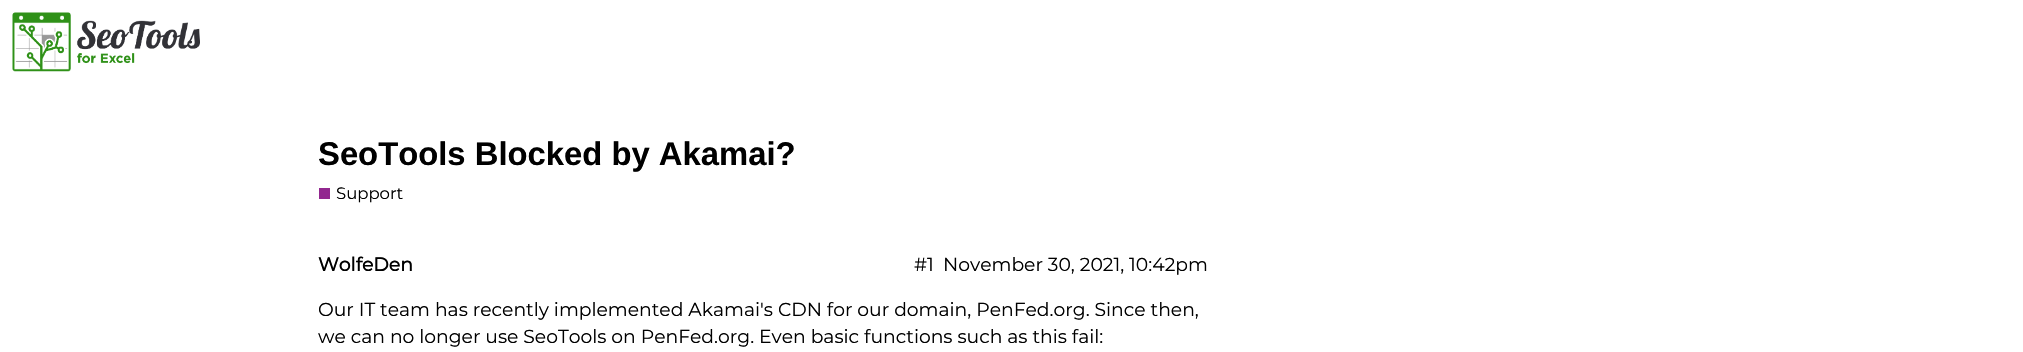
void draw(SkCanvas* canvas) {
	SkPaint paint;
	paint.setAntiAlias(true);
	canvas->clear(0xffffffff);
	canvas->drawImageRect(SkImages::DeferredFromEncodedData(SkData::MakeFromFileName("img1.png")), SkRect::MakeXYWH(12, 12, 188, 60), SkSamplingOptions());
	SkFont f1(fontMgr->matchFamilyStyle("Liberation Sans", SkFontStyle::Bold()), 32.8);
	f1.setSubpixel(true);
	paint.setColor(0xff000000);
	canvas->drawString("SeoTools Blocked by Akamai?", 318, 165, f1, paint);
	paint.setColor(0xff92278f);
	canvas->drawRect(SkRect::MakeXYWH(319, 188, 11, 11), paint);
	SkFont f2(fontMgr->matchFamilyStyle("Montserrat", SkFontStyle(100, SkFontStyle::kNormal_Width, SkFontStyle::kUpright_Slant)), 16.5);
	f2.setSubpixel(true);
	paint.setColor(0xff000000);
	canvas->drawString("Support", 336, 199, f2, paint);
	SkFont f3(fontMgr->matchFamilyStyle("Montserrat", SkFontStyle::Bold()), 18.75);
	f3.setSubpixel(true);
	canvas->drawString("WolfeDen", 318, 271, f3, paint);
	SkFont f4(fontMgr->matchFamilyStyle("Montserrat", SkFontStyle(100, SkFontStyle::kNormal_Width, SkFontStyle::kUpright_Slant)), 18.75);
	f4.setSubpixel(true);
	canvas->drawString("#1", 914, 271, f4, paint);
	canvas->drawString("November 30, 2021, 10:42pm", 943, 271, f4, paint);
	canvas->drawString("Our IT team has recently implemented Akamai's CDN for our domain, PenFed.org. Since then,", 318, 316, f4, paint);
	canvas->drawString("we can no longer use SeoTools on PenFed.org. Even basic functions such as this fail:", 318, 343, f4, paint);
}
